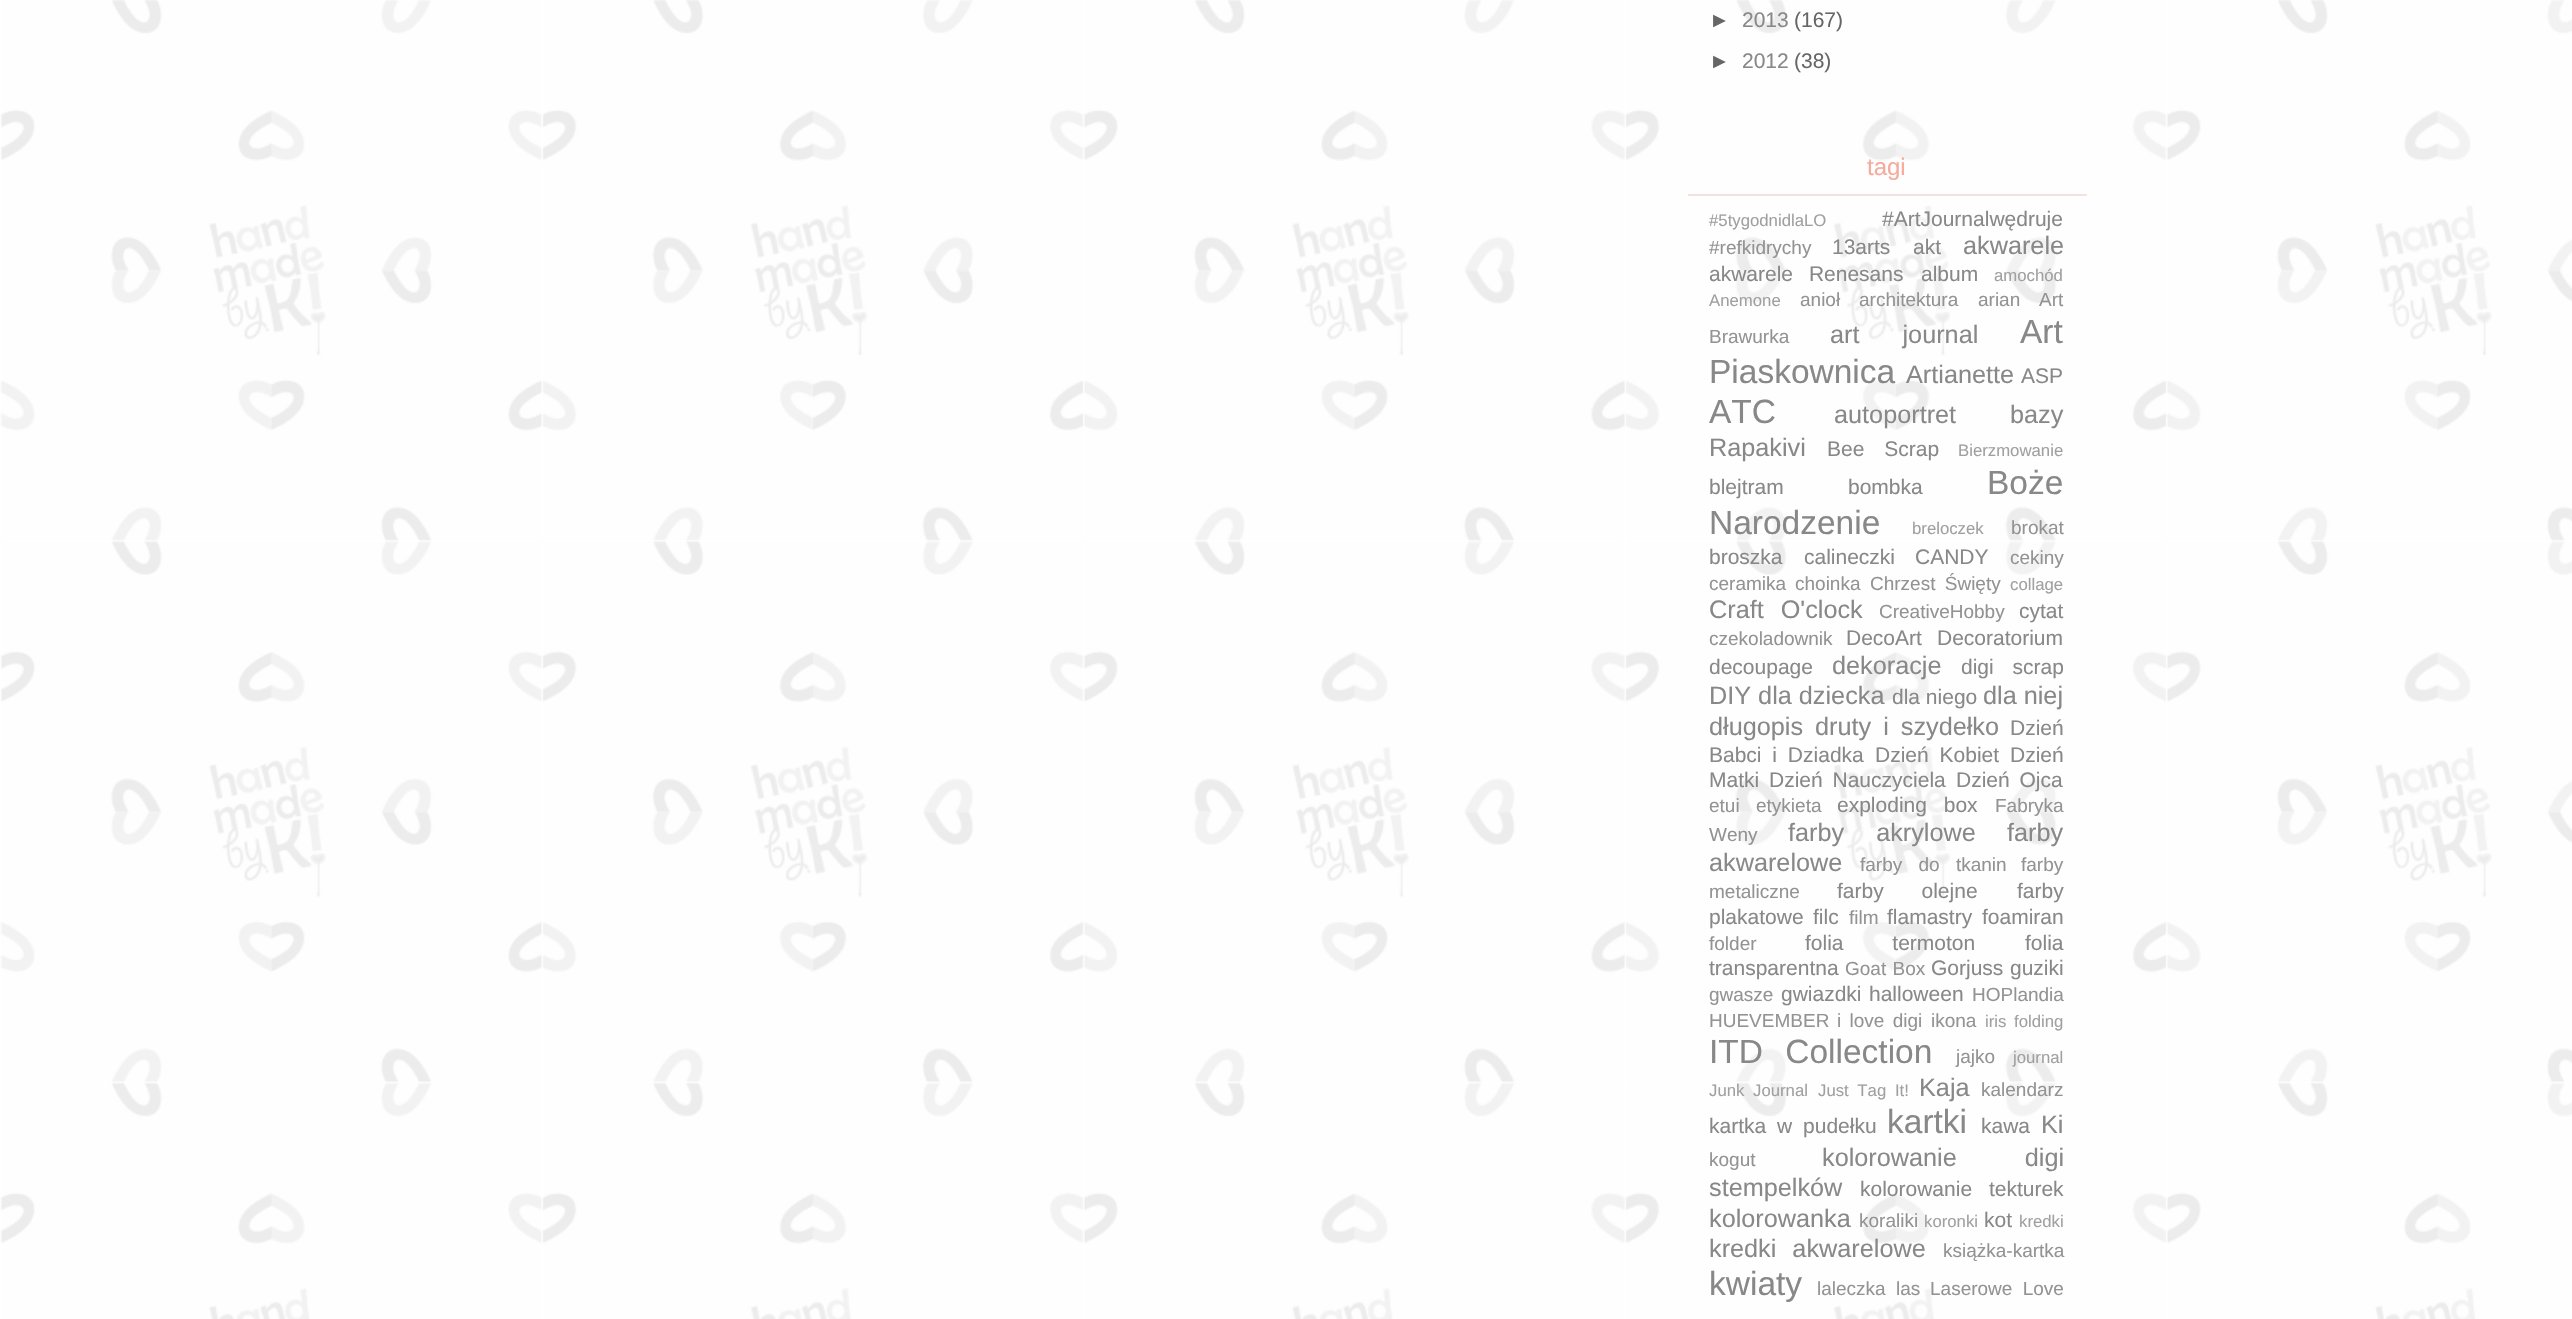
void draw(SkCanvas* canvas) {
	SkPaint paint;
	paint.setAntiAlias(true);
	auto spacedText = [&](const char* s, float x, float y, const SkFont& font, const SkPaint& ink, float letter, float word) {
		std::vector<SkGlyphID> glyphs(font.countText(s, strlen(s), SkTextEncoding::kUTF8));
		std::vector<float> xs(glyphs.size());
		font.textToGlyphs(s, strlen(s), SkTextEncoding::kUTF8, glyphs);
		font.getXPos(glyphs, xs, x);
		float extra = 0;
		for (size_t i = 0; i < glyphs.size(); i++) {
			xs[i] += extra;
			extra += letter + word * (glyphs[i] == font.unicharToGlyph(' '));
		}
		canvas->drawTextBlob(SkTextBlob::MakeFromPosHGlyphs(glyphs, xs, y, font), 0, 0, ink);
	};
	canvas->clear(0xffffffff);
	canvas->drawImageRect(SkImages::DeferredFromEncodedData(SkData::MakeFromFileName("img1.png")), SkRect::MakeXYWH(0, 0, 2572, 1319), SkSamplingOptions());
	SkFont f1(fontMgr->matchFamilyStyle("Liberation Sans", SkFontStyle::Normal()), 21);
	f1.setSubpixel(true);
	paint.setColor(0xff666666);
	canvas->drawString("►", 1709, 27, f1, paint);
	paint.setColor(0xff888888);
	canvas->drawString("2013", 1742, 27, f1, paint);
	paint.setColor(0xff666666);
	canvas->drawString("(167)", 1794, 27, f1, paint);
	canvas->drawString("►", 1709, 68, f1, paint);
	paint.setColor(0xff888888);
	canvas->drawString("2012", 1742, 68, f1, paint);
	paint.setColor(0xff666666);
	canvas->drawString("(38)", 1794, 68, f1, paint);
	paint.setColor(0xfff5e2df);
	canvas->drawRect(SkRect::MakeXYWH(1688, 194, 399, 2), paint);
	SkFont f2(fontMgr->matchFamilyStyle("Liberation Sans", SkFontStyle::Normal()), 24);
	f2.setSubpixel(true);
	paint.setColor(0xfff5ac9e);
	canvas->drawString("tagi", 1867, 175, f2, paint);
	SkFont f3(fontMgr->matchFamilyStyle("Liberation Sans", SkFontStyle::Normal()), 16.75);
	f3.setSubpixel(true);
	paint.setColor(0xffa0a0a0);
	canvas->drawString("#5tygodnidlaLO", 1709, 226, f3, paint);
	paint.setColor(0xff888888);
	canvas->drawString("#ArtJournalwędruje", 1882, 226, f1, paint);
	SkFont f4(fontMgr->matchFamilyStyle("Liberation Sans", SkFontStyle::Normal()), 19);
	f4.setSubpixel(true);
	paint.setColor(0xff939393);
	canvas->drawString("#refkidrychy", 1709, 254, f4, paint);
	paint.setColor(0xff888888);
	canvas->drawString("13arts", 1832, 254, f1, paint);
	canvas->drawString("akt", 1913, 254, f1, paint);
	SkFont f5(fontMgr->matchFamilyStyle("Liberation Sans", SkFontStyle::Normal()), 25.25);
	f5.setSubpixel(true);
	canvas->drawString("akwarele", 1963, 254, f5, paint);
	spacedText("akwarele Renesans", 1709, 281, f1, paint, 0, 10);
	canvas->drawString("album", 1921, 281, f1, paint);
	paint.setColor(0xffa0a0a0);
	canvas->drawString("amochód", 1994, 281, f3, paint);
	canvas->drawString("Anemone", 1709, 306, f3, paint);
	paint.setColor(0xff939393);
	canvas->drawString("anioł", 1800, 306, f4, paint);
	canvas->drawString("architektura", 1859, 306, f4, paint);
	canvas->drawString("arian", 1978, 306, f4, paint);
	canvas->drawString("Art", 2039, 306, f4, paint);
	canvas->drawString("Brawurka", 1709, 343, f4, paint);
	paint.setColor(0xff888888);
	spacedText("art journal", 1830, 343, f5, paint, 0, 36);
	SkFont f6(fontMgr->matchFamilyStyle("Liberation Sans", SkFontStyle::Normal()), 33.5);
	f6.setSubpixel(true);
	canvas->drawString("Art", 2020, 343, f6, paint);
	canvas->drawString("Piaskownica", 1709, 383, f6, paint);
	canvas->drawString("Artianette", 1906, 383, f5, paint);
	canvas->drawString("ASP", 2021, 383, f1, paint);
	canvas->drawString("ATC", 1709, 423, f6, paint);
	canvas->drawString("autoportret", 1834, 423, f5, paint);
	canvas->drawString("bazy", 2010, 423, f5, paint);
	canvas->drawString("Rapakivi", 1709, 456, f5, paint);
	spacedText("Bee Scrap", 1827, 456, f1, paint, 0, 14);
	paint.setColor(0xffa0a0a0);
	canvas->drawString("Bierzmowanie", 1958, 456, f3, paint);
	paint.setColor(0xff888888);
	canvas->drawString("blejtram", 1709, 494, f1, paint);
	canvas->drawString("bombka", 1848, 494, f1, paint);
	canvas->drawString("Boże", 1987, 494, f6, paint);
	canvas->drawString("Narodzenie", 1709, 534, f6, paint);
	paint.setColor(0xffa0a0a0);
	canvas->drawString("breloczek", 1912, 534, f3, paint);
	paint.setColor(0xff939393);
	canvas->drawString("brokat", 2011, 534, f4, paint);
	paint.setColor(0xff888888);
	canvas->drawString("broszka", 1709, 564, f1, paint);
	canvas->drawString("calineczki", 1804, 564, f1, paint);
	canvas->drawString("CANDY", 1915, 564, f1, paint);
	paint.setColor(0xff939393);
	canvas->drawString("cekiny", 2010, 564, f4, paint);
	canvas->drawString("ceramika", 1709, 590, f4, paint);
	canvas->drawString("choinka", 1795, 590, f4, paint);
	spacedText("Chrzest Święty", 1870, 590, f4, paint, 0, 4);
	paint.setColor(0xffa0a0a0);
	canvas->drawString("collage", 2010, 590, f3, paint);
	paint.setColor(0xff888888);
	spacedText("Craft O'clock", 1709, 618, f5, paint, 0, 10);
	paint.setColor(0xff939393);
	canvas->drawString("CreativeHobby", 1879, 618, f4, paint);
	paint.setColor(0xff888888);
	canvas->drawString("cytat", 2019, 618, f1, paint);
	paint.setColor(0xff939393);
	canvas->drawString("czekoladownik", 1709, 645, f4, paint);
	paint.setColor(0xff888888);
	canvas->drawString("DecoArt", 1846, 645, f1, paint);
	canvas->drawString("Decoratorium", 1937, 645, f1, paint);
	canvas->drawString("decoupage", 1709, 674, f1, paint);
	canvas->drawString("dekoracje", 1832, 674, f5, paint);
	spacedText("digi scrap", 1961, 674, f1, paint, 0, 13);
	canvas->drawString("DIY dla dziecka", 1709, 704, f5, paint);
	canvas->drawString("dla niego", 1892, 704, f1, paint);
	canvas->drawString("dla niej", 1983, 704, f5, paint);
	canvas->drawString("długopis", 1709, 735, f5, paint);
	spacedText("druty i szydełko", 1815, 735, f5, paint, 0, 5);
	canvas->drawString("Dzień", 2010, 735, f1, paint);
	spacedText("Babci i Dziadka", 1709, 762, f1, paint, 0, 5);
	spacedText("Dzień Kobiet", 1875, 762, f1, paint, 0, 5);
	canvas->drawString("Dzień", 2010, 762, f1, paint);
	canvas->drawString("Matki", 1709, 787, f1, paint);
	spacedText("Dzień Nauczyciela", 1769, 787, f1, paint, 0, 4);
	spacedText("Dzień Ojca", 1956, 787, f1, paint, 0, 4);
	paint.setColor(0xff939393);
	canvas->drawString("etui", 1709, 812, f4, paint);
	canvas->drawString("etykieta", 1756, 812, f4, paint);
	paint.setColor(0xff888888);
	spacedText("exploding box", 1837, 812, f1, paint, 0, 11);
	paint.setColor(0xff939393);
	canvas->drawString("Fabryka", 1995, 812, f4, paint);
	canvas->drawString("Weny", 1709, 841, f4, paint);
	paint.setColor(0xff888888);
	spacedText("farby akrylowe", 1788, 841, f5, paint, 0, 25);
	canvas->drawString("farby", 2007, 841, f5, paint);
	canvas->drawString("akwarelowe", 1709, 871, f5, paint);
	paint.setColor(0xff939393);
	spacedText("farby do tkanin", 1860, 871, f4, paint, 0, 11);
	canvas->drawString("farby", 2021, 871, f4, paint);
	canvas->drawString("metaliczne", 1709, 898, f4, paint);
	paint.setColor(0xff888888);
	spacedText("farby olejne", 1837, 898, f1, paint, 0, 32);
	canvas->drawString("farby", 2017, 898, f1, paint);
	canvas->drawString("plakatowe", 1709, 924, f1, paint);
	canvas->drawString("filc", 1813, 924, f1, paint);
	paint.setColor(0xff939393);
	canvas->drawString("film", 1849, 924, f4, paint);
	paint.setColor(0xff888888);
	canvas->drawString("flamastry", 1887, 924, f1, paint);
	canvas->drawString("foamiran", 1982, 924, f1, paint);
	paint.setColor(0xff939393);
	canvas->drawString("folder", 1709, 950, f4, paint);
	paint.setColor(0xff888888);
	spacedText("folia termoton", 1805, 950, f1, paint, 0, 43);
	canvas->drawString("folia", 2025, 950, f1, paint);
	canvas->drawString("transparentna", 1709, 975, f1, paint);
	paint.setColor(0xff939393);
	spacedText("Goat Box", 1845, 975, f4, paint, 0, 1);
	paint.setColor(0xff888888);
	canvas->drawString("Gorjuss", 1931, 975, f1, paint);
	canvas->drawString("guziki", 2010, 975, f1, paint);
	paint.setColor(0xff939393);
	canvas->drawString("gwasze", 1709, 1001, f4, paint);
	paint.setColor(0xff888888);
	canvas->drawString("gwiazdki", 1781, 1001, f1, paint);
	canvas->drawString("halloween", 1869, 1001, f1, paint);
	paint.setColor(0xff939393);
	canvas->drawString("HOPlandia", 1972, 1001, f4, paint);
	canvas->drawString("HUEVEMBER", 1709, 1027, f4, paint);
	spacedText("i love digi", 1837, 1027, f4, paint, 0, 3);
	canvas->drawString("ikona", 1931, 1027, f4, paint);
	paint.setColor(0xffa0a0a0);
	spacedText("iris folding", 1985, 1027, f3, paint, 0, 3);
	paint.setColor(0xff888888);
	spacedText("ITD Collection", 1709, 1063, f6, paint, 0, 13);
	paint.setColor(0xff939393);
	canvas->drawString("jajko", 1956, 1063, f4, paint);
	paint.setColor(0xffa0a0a0);
	canvas->drawString("journal", 2013, 1063, f3, paint);
	spacedText("Junk Journal", 1709, 1096, f3, paint, 0, 4);
	spacedText("Just Tag It!", 1818, 1096, f3, paint, 0, 4);
	paint.setColor(0xff888888);
	canvas->drawString("Kaja", 1919, 1096, f5, paint);
	paint.setColor(0xff939393);
	canvas->drawString("kalendarz", 1981, 1096, f4, paint);
	paint.setColor(0xff888888);
	spacedText("kartka w pudełku", 1709, 1133, f1, paint, 0, 5);
	canvas->drawString("kartki", 1887, 1133, f6, paint);
	canvas->drawString("kawa", 1981, 1133, f1, paint);
	canvas->drawString("Ki", 2041, 1133, f5, paint);
	paint.setColor(0xff939393);
	canvas->drawString("kogut", 1709, 1166, f4, paint);
	paint.setColor(0xff888888);
	spacedText("kolorowanie digi", 1822, 1166, f5, paint, 0, 61);
	canvas->drawString("stempelków", 1709, 1196, f5, paint);
	spacedText("kolorowanie tekturek", 1860, 1196, f1, paint, 0, 11);
	canvas->drawString("kolorowanka", 1709, 1227, f5, paint);
	paint.setColor(0xff939393);
	canvas->drawString("koraliki", 1859, 1227, f4, paint);
	paint.setColor(0xffa0a0a0);
	canvas->drawString("koronki", 1924, 1227, f3, paint);
	paint.setColor(0xff888888);
	canvas->drawString("kot", 1984, 1227, f1, paint);
	paint.setColor(0xffa0a0a0);
	canvas->drawString("kredki", 2019, 1227, f3, paint);
	paint.setColor(0xff888888);
	spacedText("kredki akwarelowe", 1709, 1257, f5, paint, 0, 9);
	paint.setColor(0xff939393);
	canvas->drawString("książka-kartka", 1943, 1257, f4, paint);
	paint.setColor(0xff888888);
	canvas->drawString("kwiaty", 1709, 1295, f6, paint);
	paint.setColor(0xff939393);
	canvas->drawString("laleczka", 1817, 1295, f4, paint);
	canvas->drawString("las", 1896, 1295, f4, paint);
	spacedText("Laserowe Love", 1930, 1295, f4, paint, 0, 5);
}
